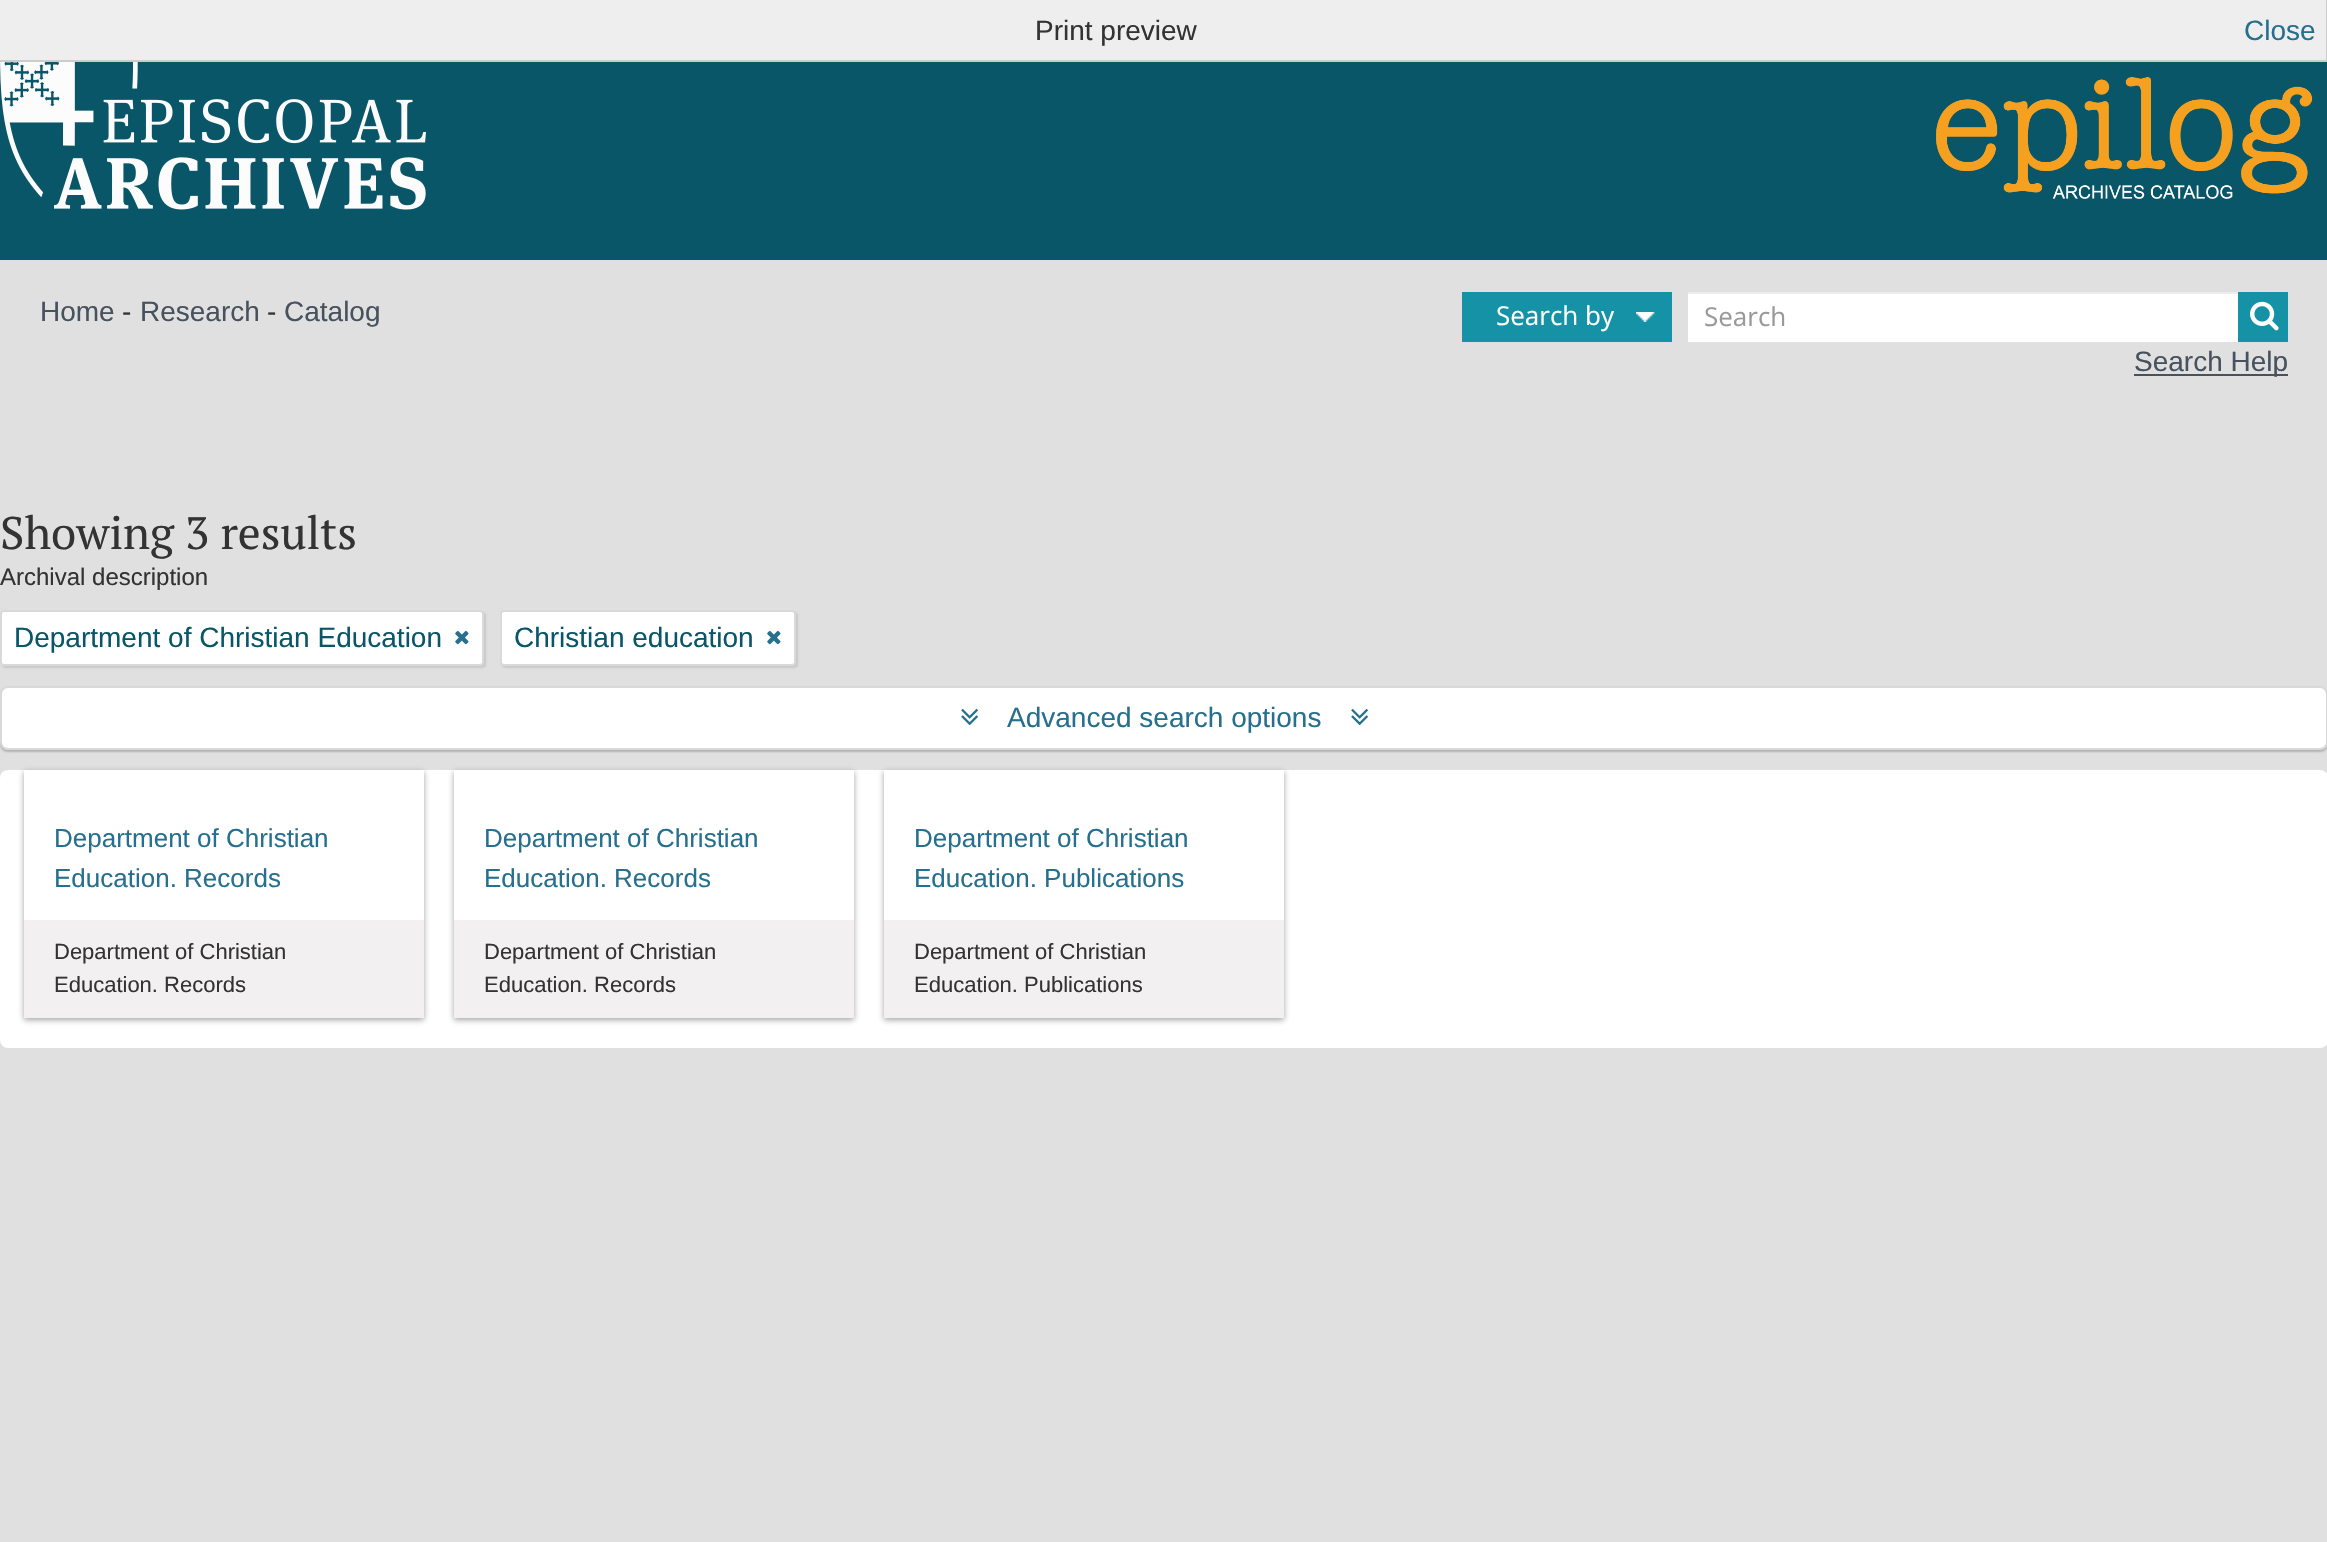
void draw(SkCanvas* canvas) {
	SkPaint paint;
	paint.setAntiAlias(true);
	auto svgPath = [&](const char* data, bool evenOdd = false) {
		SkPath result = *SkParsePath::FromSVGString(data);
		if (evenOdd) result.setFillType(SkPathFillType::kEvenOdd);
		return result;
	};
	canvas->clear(0xffe0e0e0);
	paint.setColor(0xffeeeeee);
	canvas->drawRect(SkRect::MakeXYWH(0, 0, 2326, 60), paint);
	paint.setColor(0xffcccccc);
	canvas->drawRect(SkRect::MakeXYWH(2326, 0, 1, 62), paint);
	canvas->drawRect(SkRect::MakeXYWH(0, 60, 2327, 2), paint);
	SkFont f1(fontMgr->matchFamilyStyle("Liberation Sans", SkFontStyle::Normal()), 28);
	f1.setSubpixel(true);
	paint.setColor(0xff333333);
	canvas->drawString("Print preview", 1035, 40, f1, paint);
	paint.setColor(0xff266f8e);
	canvas->drawString("Close", 2244, 40, f1, paint);
	SkFont f2(fontMgr->matchFamilyStyle("PT Serif", SkFontStyle::Normal()), 45.5);
	f2.setSubpixel(true);
	paint.setColor(0xff333333);
	canvas->drawString("Showing 3 results", 0, 549, f2, paint);
	SkFont f3(fontMgr->matchFamilyStyle("Liberation Sans", SkFontStyle::Normal()), 24);
	f3.setSubpixel(true);
	canvas->drawString("Archival description", 0, 585, f3, paint);
	paint.setColor(0x1a000000);
	paint.setMaskFilter(SkMaskFilter::MakeBlur(kNormal_SkBlurStyle, 1));
	canvas->drawRoundRect(SkRect::MakeXYWH(2, 612, 484, 56), 4, 4, paint);
	paint.setMaskFilter(nullptr);
	paint.setColor(0xffffffff);
	canvas->drawRoundRect(SkRect::MakeXYWH(1, 611, 482, 54), 3, 3, paint);
	paint.setStroke(true);
	paint.setStrokeWidth(2);
	paint.setColor(0xffd9d9d9);
	canvas->drawRoundRect(SkRect::MakeXYWH(1, 611, 482, 54), 3, 3, paint);
	paint.setStroke(false);
	paint.setColor(0xff095669);
	canvas->drawString("Department of Christian Education", 14, 647, f1, paint);
	canvas->drawImageRect(SkImages::DeferredFromEncodedData(SkData::MakeFromFileName("img1.png")), SkRect::MakeXYWH(455, 631, 14, 14), SkSamplingOptions());
	paint.setColor(0x1a000000);
	paint.setMaskFilter(SkMaskFilter::MakeBlur(kNormal_SkBlurStyle, 1));
	canvas->drawRoundRect(SkRect::MakeXYWH(502, 612, 296, 56), 4, 4, paint);
	paint.setMaskFilter(nullptr);
	paint.setColor(0xffffffff);
	canvas->drawRoundRect(SkRect::MakeXYWH(501, 611, 294, 54), 3, 3, paint);
	paint.setStroke(true);
	paint.setColor(0xffd9d9d9);
	canvas->drawRoundRect(SkRect::MakeXYWH(501, 611, 294, 54), 3, 3, paint);
	paint.setStroke(false);
	paint.setColor(0xff095669);
	canvas->drawString("Christian education", 514, 647, f1, paint);
	canvas->drawImageRect(SkImages::DeferredFromEncodedData(SkData::MakeFromFileName("img1.png")), SkRect::MakeXYWH(767, 631, 14, 14), SkSamplingOptions());
	paint.setColor(0x33000000);
	paint.setMaskFilter(SkMaskFilter::MakeBlur(kNormal_SkBlurStyle, 1));
	canvas->drawRoundRect(SkRect::MakeXYWH(0, 688, 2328, 64), 8, 8, paint);
	paint.setMaskFilter(nullptr);
	paint.setColor(0xffffffff);
	canvas->drawRoundRect(SkRect::MakeXYWH(1, 687, 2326, 62), 7, 7, paint);
	paint.setStroke(true);
	paint.setColor(0xffd9d9d9);
	canvas->drawRoundRect(SkRect::MakeXYWH(1, 687, 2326, 62), 7, 7, paint);
	canvas->drawImageRect(SkImages::DeferredFromEncodedData(SkData::MakeFromFileName("img2.png")), SkRect::MakeXYWH(961, 709, 17, 17), SkSamplingOptions());
	paint.setStroke(false);
	paint.setColor(0xff266f8e);
	canvas->drawString("Advanced search options", 1007, 727, f1, paint);
	canvas->drawImageRect(SkImages::DeferredFromEncodedData(SkData::MakeFromFileName("img2.png")), SkRect::MakeXYWH(1351, 709, 17, 17), SkSamplingOptions());
	paint.setColor(0xffffffff);
	canvas->drawRoundRect(SkRect::MakeXYWH(0, 770, 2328, 278), 8, 8, paint);
	canvas->save();
	canvas->clipPath(svgPath("M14 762H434V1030H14ZM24 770H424V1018H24Z", true), true);
	paint.setColor(0x66191919);
	paint.setMaskFilter(SkMaskFilter::MakeBlur(kNormal_SkBlurStyle, 3));
	canvas->drawRect(SkRect::MakeXYWH(24, 772, 400, 248), paint);
	paint.setMaskFilter(nullptr);
	canvas->restore();
	SkFont f4(fontMgr->matchFamilyStyle("Liberation Sans", SkFontStyle::Normal()), 26);
	f4.setSubpixel(true);
	paint.setColor(0xff266f8e);
	canvas->drawString("Department of Christian", 54, 847, f4, paint);
	canvas->drawString("Education. Records", 54, 887, f4, paint);
	paint.setColor(0xfff2f0f0);
	canvas->drawRect(SkRect::MakeXYWH(24, 920, 400, 98), paint);
	SkFont f5(fontMgr->matchFamilyStyle("Liberation Sans", SkFontStyle::Normal()), 22);
	f5.setSubpixel(true);
	paint.setColor(0xff333333);
	canvas->drawString("Department of Christian", 54, 959, f5, paint);
	canvas->drawString("Education. Records", 54, 992, f5, paint);
	canvas->save();
	canvas->clipPath(svgPath("M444 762H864V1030H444ZM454 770H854V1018H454Z", true), true);
	paint.setColor(0x66191919);
	paint.setMaskFilter(SkMaskFilter::MakeBlur(kNormal_SkBlurStyle, 3));
	canvas->drawRect(SkRect::MakeXYWH(454, 772, 400, 248), paint);
	paint.setMaskFilter(nullptr);
	canvas->restore();
	paint.setColor(0xff266f8e);
	canvas->drawString("Department of Christian", 484, 847, f4, paint);
	canvas->drawString("Education. Records", 484, 887, f4, paint);
	paint.setColor(0xfff2f0f0);
	canvas->drawRect(SkRect::MakeXYWH(454, 920, 400, 98), paint);
	paint.setColor(0xff333333);
	canvas->drawString("Department of Christian", 484, 959, f5, paint);
	canvas->drawString("Education. Records", 484, 992, f5, paint);
	canvas->save();
	canvas->clipPath(svgPath("M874 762H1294V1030H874ZM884 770H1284V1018H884Z", true), true);
	paint.setColor(0x66191919);
	paint.setMaskFilter(SkMaskFilter::MakeBlur(kNormal_SkBlurStyle, 3));
	canvas->drawRect(SkRect::MakeXYWH(884, 772, 400, 248), paint);
	paint.setMaskFilter(nullptr);
	canvas->restore();
	paint.setColor(0xff266f8e);
	canvas->drawString("Department of Christian", 914, 847, f4, paint);
	canvas->drawString("Education. Publications", 914, 887, f4, paint);
	paint.setColor(0xfff2f0f0);
	canvas->drawRect(SkRect::MakeXYWH(884, 920, 400, 98), paint);
	paint.setColor(0xff333333);
	canvas->drawString("Department of Christian", 914, 959, f5, paint);
	canvas->drawString("Education. Publications", 914, 992, f5, paint);
	paint.setColor(0xff095669);
	canvas->drawRect(SkRect::MakeXYWH(0, 62, 2327, 198), paint);
	canvas->drawImageRect(SkImages::DeferredFromEncodedData(SkData::MakeFromFileName("img3.png")), SkRect::MakeXYWH(0, 62, 426, 148), SkSamplingOptions());
	canvas->drawImageRect(SkImages::DeferredFromEncodedData(SkData::MakeFromFileName("img4.png")), SkRect::MakeXYWH(1936, 77, 377, 122), SkSamplingOptions());
	paint.setColor(0xff47525e);
	canvas->drawString("Home", 40, 321, f1, paint);
	paint.setColor(0xff333333);
	canvas->drawString("-", 122, 321, f1, paint);
	paint.setColor(0xff47525e);
	canvas->drawString("Research", 140, 321, f1, paint);
	paint.setColor(0xff333333);
	canvas->drawString("-", 267, 321, f1, paint);
	paint.setColor(0xff47525e);
	canvas->drawString("Catalog", 284, 321, f1, paint);
	paint.setColor(0xff1592a6);
	canvas->drawRect(SkRect::MakeXYWH(1462, 292, 210, 50), paint);
	canvas->drawImageRect(SkImages::DeferredFromEncodedData(SkData::MakeFromFileName("img5.png")), SkRect::MakeXYWH(1636, 312, 19, 10), SkSamplingOptions());
	SkFont f6(fontMgr->matchFamilyStyle("Open Sans", SkFontStyle::Normal()), 26);
	f6.setSubpixel(true);
	paint.setColor(0xffffffff);
	canvas->drawString("Search by", 1496, 325, f6, paint);
	canvas->drawRect(SkRect::MakeXYWH(1688, 294, 550, 48), paint);
	paint.setColor(0xffececec);
	canvas->drawRect(SkRect::MakeXYWH(1688, 292, 550, 2), paint);
	paint.setColor(0xff999999);
	canvas->drawString("Search", 1704, 326, f6, paint);
	paint.setColor(0xff1592a6);
	canvas->drawRect(SkRect::MakeXYWH(2238, 292, 50, 50), paint);
	canvas->drawImageRect(SkImages::DeferredFromEncodedData(SkData::MakeFromFileName("img6.png")), SkRect::MakeXYWH(2250, 301, 29, 30), SkSamplingOptions());
	paint.setColor(0xff47525e);
	canvas->drawRect(SkRect::MakeXYWH(2134, 374, 154, 2), paint);
	canvas->drawString("Search Help", 2134, 371, f1, paint);
}
